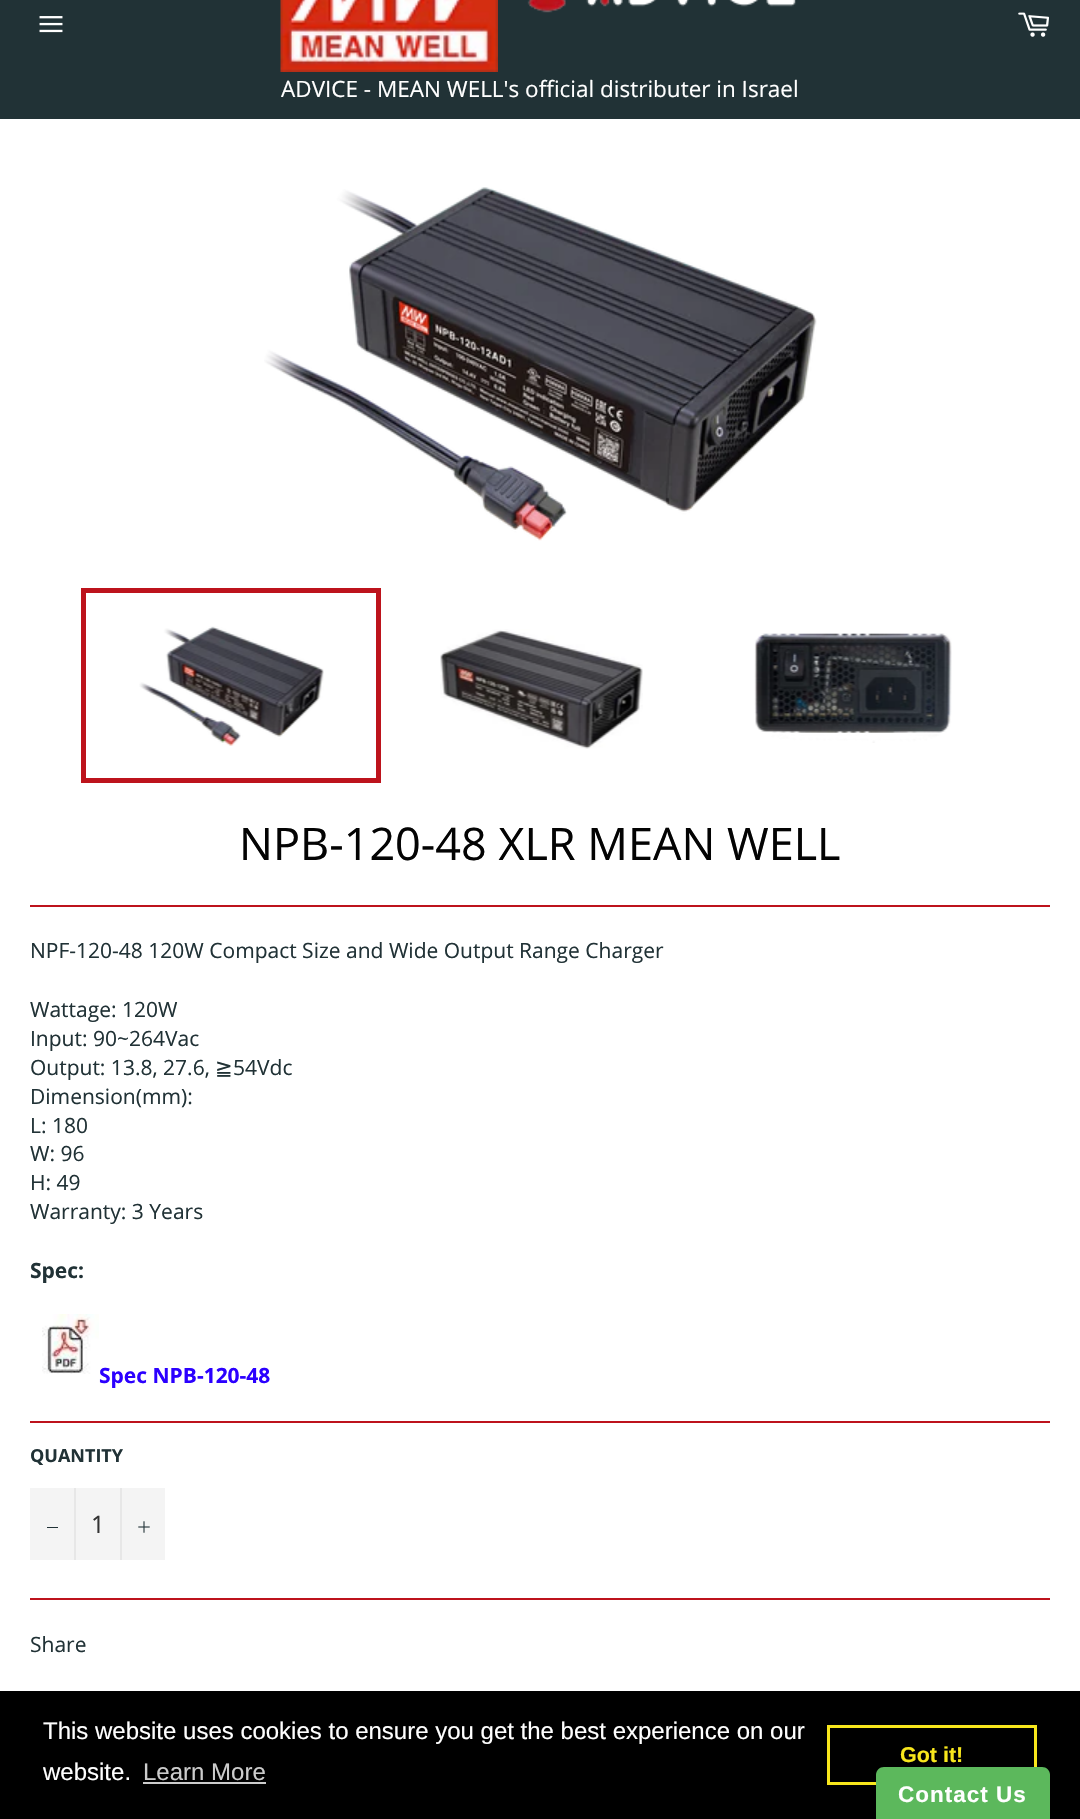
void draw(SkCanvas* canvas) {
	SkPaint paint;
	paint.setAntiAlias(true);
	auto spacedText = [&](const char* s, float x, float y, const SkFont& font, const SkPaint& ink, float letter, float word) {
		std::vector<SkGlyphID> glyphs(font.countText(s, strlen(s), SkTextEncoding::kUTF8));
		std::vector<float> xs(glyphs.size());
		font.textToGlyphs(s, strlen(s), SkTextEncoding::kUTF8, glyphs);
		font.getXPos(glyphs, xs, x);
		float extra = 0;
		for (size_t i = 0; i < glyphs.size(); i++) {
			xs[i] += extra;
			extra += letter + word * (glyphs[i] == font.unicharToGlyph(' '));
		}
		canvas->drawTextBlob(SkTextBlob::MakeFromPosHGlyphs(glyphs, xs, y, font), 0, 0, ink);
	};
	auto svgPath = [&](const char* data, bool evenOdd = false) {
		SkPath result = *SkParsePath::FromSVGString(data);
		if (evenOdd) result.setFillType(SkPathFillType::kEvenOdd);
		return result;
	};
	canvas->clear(0xff213236);
	canvas->drawImageRect(SkImages::DeferredFromEncodedData(SkData::MakeFromFileName("img1.png")), SkRect::MakeXYWH(39, 16, 24, 17), SkSamplingOptions());
	canvas->drawImageRect(SkImages::DeferredFromEncodedData(SkData::MakeFromFileName("img2.png")), SkRect::MakeXYWH(1018, 12, 31, 25), SkSamplingOptions());
	canvas->drawImageRect(SkImages::DeferredFromEncodedData(SkData::MakeFromFileName("img3.png")), SkRect::MakeXYWH(280, 0, 218, 72), SkSamplingOptions());
	canvas->drawImageRect(SkImages::DeferredFromEncodedData(SkData::MakeFromFileName("img4.png")), SkRect::MakeXYWH(527, 0, 269, 13), SkSamplingOptions());
	SkFont f1(fontMgr->matchFamilyStyle("Open Sans", SkFontStyle::Normal()), 22.5);
	f1.setSubpixel(true);
	paint.setColor(0xffffffff);
	canvas->drawString("ADVICE - MEAN WELL's official distributer in Israel", 281, 97, f1, paint);
	canvas->drawRect(SkRect::MakeXYWH(0, 119, 1080, 1572), paint);
	canvas->drawImageRect(SkImages::DeferredFromEncodedData(SkData::MakeFromFileName("img5.png")), SkRect::MakeXYWH(264, 187, 553, 354), SkSamplingOptions());
	canvas->drawImageRect(SkImages::DeferredFromEncodedData(SkData::MakeFromFileName("img6.png")), SkRect::MakeXYWH(139, 626, 185, 120), SkSamplingOptions());
	paint.setStroke(true);
	paint.setStrokeWidth(5);
	paint.setColor(0xffbd131c);
	canvas->drawRect(SkRect::MakeXYWH(83.5, 590.5, 295, 190), paint);
	canvas->drawImageRect(SkImages::DeferredFromEncodedData(SkData::MakeFromFileName("img7.png")), SkRect::MakeXYWH(440, 629, 203, 120), SkSamplingOptions());
	canvas->drawImageRect(SkImages::DeferredFromEncodedData(SkData::MakeFromFileName("img8.png")), SkRect::MakeXYWH(754, 633, 198, 110), SkSamplingOptions());
	SkFont f2(fontMgr->matchFamilyStyle("Open Sans", SkFontStyle::Normal()), 45);
	f2.setSubpixel(true);
	paint.setStroke(false);
	paint.setColor(0xff030303);
	canvas->drawString("NPB-120-48 XLR MEAN WELL", 239, 860, f2, paint);
	paint.setColor(0xffbd131c);
	canvas->drawRect(SkRect::MakeXYWH(30, 905, 1020, 2), paint);
	SkFont f3(fontMgr->matchFamilyStyle("Open Sans", SkFontStyle::Normal()), 21);
	f3.setSubpixel(true);
	paint.setColor(0xff213236);
	canvas->drawString("NPF-120-48 120W Compact Size and Wide Output Range Charger", 30, 958, f3, paint);
	canvas->drawString("Wattage: 120W", 30, 1017, f3, paint);
	canvas->drawString("Input: 90~264Vac", 30, 1046, f3, paint);
	canvas->drawString("Output: 13.8, 27.6,", 30, 1075, f3, paint);
	SkFont f4(fontMgr->matchFamilyStyle("DejaVu Sans", SkFontStyle::Normal()), 21);
	f4.setSubpixel(true);
	canvas->drawString("≧", 215, 1075, f4, paint);
	canvas->drawString("54Vdc", 233, 1075, f3, paint);
	canvas->drawString("Dimension(mm):", 30, 1104, f3, paint);
	canvas->drawString("L: 180", 30, 1133, f3, paint);
	canvas->drawString("W: 96", 30, 1161, f3, paint);
	canvas->drawString("H: 49", 30, 1190, f3, paint);
	canvas->drawString("Warranty: 3 Years", 30, 1219, f3, paint);
	SkFont f5(fontMgr->matchFamilyStyle("Open Sans", SkFontStyle::Bold()), 21);
	f5.setSubpixel(true);
	canvas->drawString("Spec:", 30, 1278, f5, paint);
	canvas->drawImageRect(SkImages::DeferredFromEncodedData(SkData::MakeFromFileName("img9.png")), SkRect::MakeXYWH(42, 1314, 57, 60), SkSamplingOptions());
	paint.setColor(0xff2b00ff);
	canvas->drawString("Spec NPB-120-48", 99, 1383, f5, paint);
	paint.setColor(0xffbd131c);
	canvas->drawRect(SkRect::MakeXYWH(30, 1421, 1020, 2), paint);
	SkFont f6(fontMgr->matchFamilyStyle("Open Sans", SkFontStyle::Bold()), 18);
	f6.setSubpixel(true);
	paint.setColor(0xff213236);
	canvas->drawString("QUANTITY", 30, 1462, f6, paint);
	paint.setColor(0xfff4f4f4);
	canvas->drawRect(SkRect::MakeXYWH(30, 1488, 135, 72), paint);
	paint.setColor(0xffe7e7e7);
	canvas->drawRect(SkRect::MakeXYWH(74, 1488, 2, 72), paint);
	paint.setColor(0xff213236);
	canvas->drawRect(SkRect::MakeXYWH(47, 1527, 11, 1), paint);
	SkFont f7(fontMgr->matchFamilyStyle("Open Sans", SkFontStyle::Normal()), 24);
	f7.setSubpixel(true);
	paint.setColor(0xff333333);
	canvas->drawString("1", 91, 1533, f7, paint);
	paint.setColor(0xffe7e7e7);
	canvas->drawRect(SkRect::MakeXYWH(120, 1488, 2, 72), paint);
	canvas->drawImageRect(SkImages::DeferredFromEncodedData(SkData::MakeFromFileName("img10.png")), SkRect::MakeXYWH(138, 1521, 12, 12), SkSamplingOptions());
	paint.setColor(0xffbd131c);
	canvas->drawRect(SkRect::MakeXYWH(30, 1598, 1020, 2), paint);
	paint.setColor(0xff213236);
	canvas->drawString("Share", 30, 1652, f3, paint);
	paint.setColor(0xff000000);
	canvas->drawRect(SkRect::MakeXYWH(0, 1691, 1080, 128), paint);
	SkFont f8(fontMgr->matchFamilyStyle("Liberation Sans", SkFontStyle::Normal()), 24);
	f8.setSubpixel(true);
	paint.setColor(0xffffffff);
	canvas->drawString("This website uses cookies to ensure you get the best experience on our", 43, 1739, f8, paint);
	canvas->drawString("website.", 43, 1780, f8, paint);
	paint.setColor(0xffcccccc);
	canvas->drawString("Learn More", 143, 1780, f8, paint);
	canvas->drawRect(SkRect::MakeXYWH(143, 1782, 123, 2), paint);
	paint.setStroke(true);
	paint.setStrokeWidth(3);
	paint.setColor(0xfff8e71c);
	canvas->drawRect(SkRect::MakeXYWH(828.5, 1726.5, 207, 57), paint);
	SkFont f9(fontMgr->matchFamilyStyle("Liberation Sans", SkFontStyle::Bold()), 21.5);
	f9.setSubpixel(true);
	paint.setStroke(false);
	canvas->drawString("Got it!", 900, 1762, f9, paint);
	paint.setColor(0xff5cb85c);
	canvas->drawPath(svgPath("M884 1767H1042C1046.5 1767 1050 1770.5 1050 1775V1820H876V1775C876 1770.5 879.5 1767 884 1767Z"), paint);
	SkFont f10(fontMgr->matchFamilyStyle("Liberation Sans", SkFontStyle::Bold()), 22.5);
	f10.setSubpixel(true);
	paint.setColor(0xffffffff);
	spacedText("Contact Us", 898, 1802, f10, paint, 1, 0);
}
